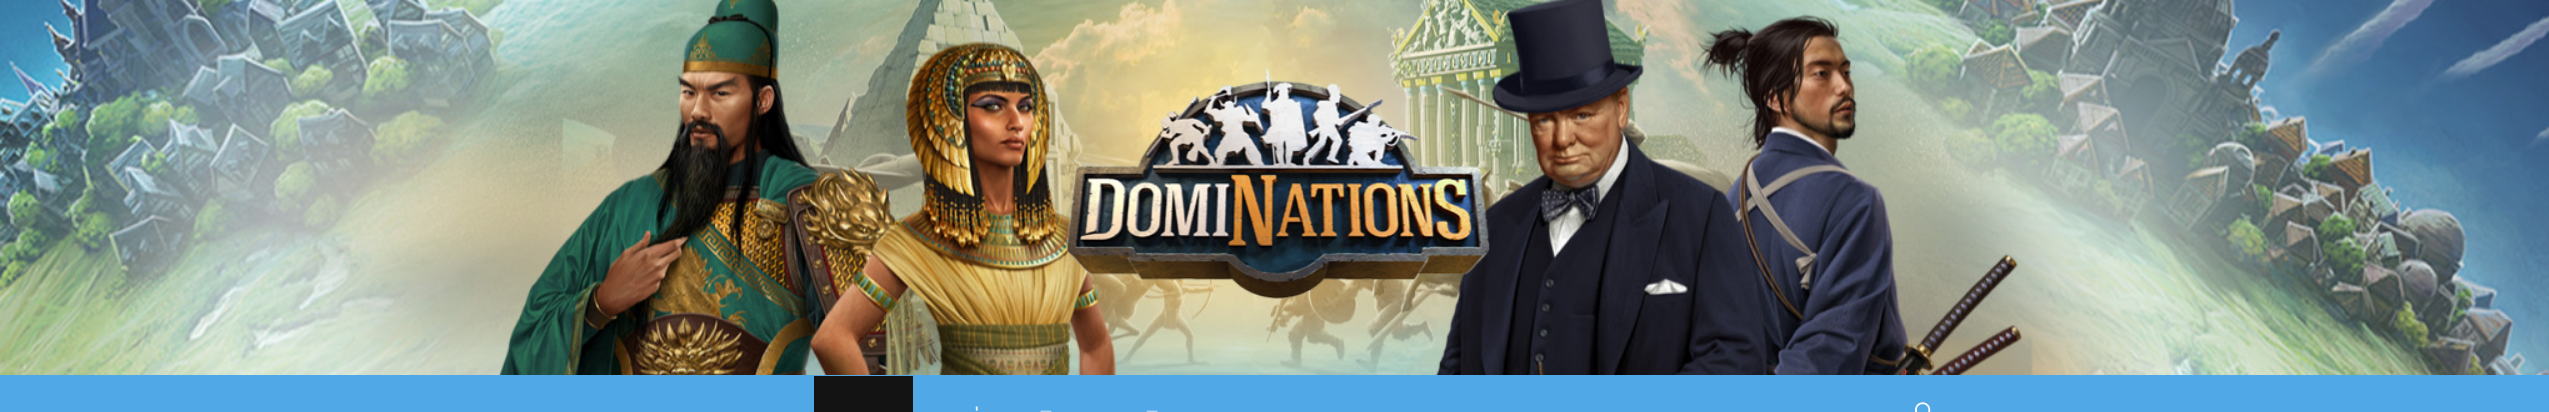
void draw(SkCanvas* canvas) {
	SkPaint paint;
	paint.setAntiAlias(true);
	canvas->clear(0xffffffff);
	canvas->drawImageRect(SkImages::DeferredFromEncodedData(SkData::MakeFromFileName("img1.png")), SkRect::MakeXYWH(0, 0, 2549, 375), SkSamplingOptions());
	canvas->drawImageRect(SkImages::DeferredFromEncodedData(SkData::MakeFromFileName("img2.png")), SkRect::MakeXYWH(1066, 67, 424, 232), SkSamplingOptions());
	paint.setColor(0xff51a8e6);
	canvas->drawRect(SkRect::MakeXYWH(0, 375, 2549, 37), paint);
	paint.setColor(0xff131313);
	canvas->drawRect(SkRect::MakeXYWH(814, 376, 99, 36), paint);
	SkFont f1(fontMgr->matchFamilyStyle("Niramit", SkFontStyle::Normal()), 19);
	f1.setSubpixel(true);
	paint.setColor(0xffffffff);
	canvas->drawString("'", 975, 420, f1, paint);
	canvas->drawImageRect(SkImages::DeferredFromEncodedData(SkData::MakeFromFileName("img3.png")), SkRect::MakeXYWH(1040, 410, 12, 2), SkSamplingOptions());
	canvas->drawImageRect(SkImages::DeferredFromEncodedData(SkData::MakeFromFileName("img4.png")), SkRect::MakeXYWH(1146, 410, 12, 2), SkSamplingOptions());
	canvas->drawImageRect(SkImages::DeferredFromEncodedData(SkData::MakeFromFileName("img5.png")), SkRect::MakeXYWH(1915, 402, 16, 10), SkSamplingOptions());
}
